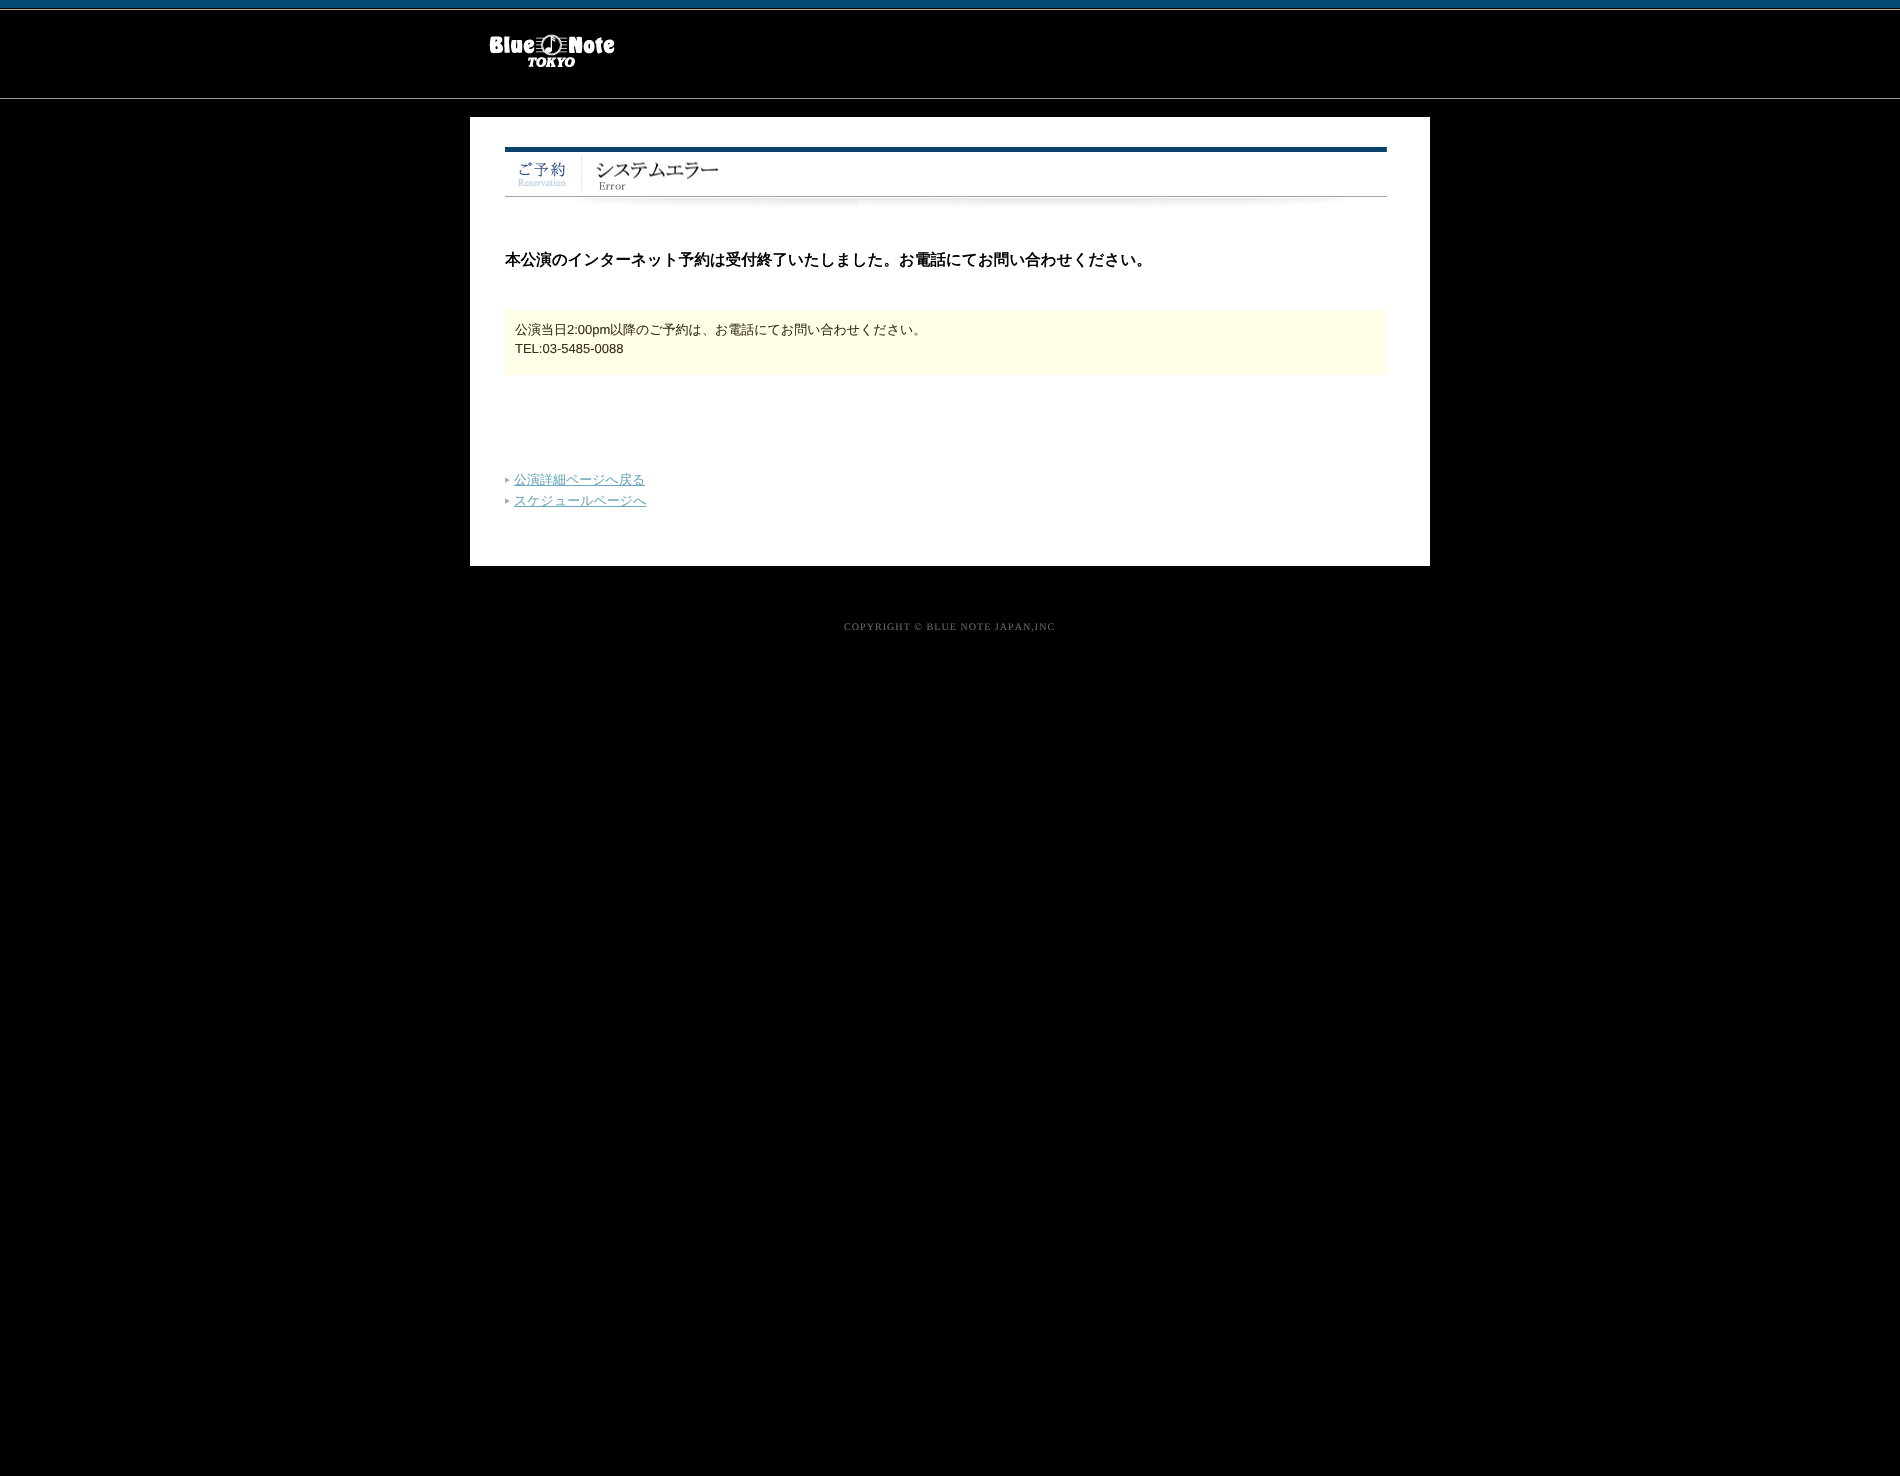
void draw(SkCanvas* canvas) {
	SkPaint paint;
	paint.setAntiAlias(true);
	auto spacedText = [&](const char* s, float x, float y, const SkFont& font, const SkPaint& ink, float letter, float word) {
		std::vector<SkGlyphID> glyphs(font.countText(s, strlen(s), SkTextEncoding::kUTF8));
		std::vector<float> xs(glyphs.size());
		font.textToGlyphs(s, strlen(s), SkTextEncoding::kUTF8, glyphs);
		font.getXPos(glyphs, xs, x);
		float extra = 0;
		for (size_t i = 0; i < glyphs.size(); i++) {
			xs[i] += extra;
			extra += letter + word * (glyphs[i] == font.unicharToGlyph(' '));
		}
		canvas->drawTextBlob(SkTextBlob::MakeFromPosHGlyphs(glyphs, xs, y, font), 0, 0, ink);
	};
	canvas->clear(0xff000000);
	canvas->drawImageRect(SkImages::DeferredFromEncodedData(SkData::MakeFromFileName("img1.png")), SkRect::MakeXYWH(0, 0, 1900, 10), SkSamplingOptions());
	paint.setColor(0xff9d9d9d);
	canvas->drawRect(SkRect::MakeXYWH(0, 98, 1900, 1), paint);
	canvas->drawImageRect(SkImages::DeferredFromEncodedData(SkData::MakeFromFileName("img2.png")), SkRect::MakeXYWH(489, 34, 126, 33), SkSamplingOptions());
	paint.setColor(0xffffffff);
	canvas->drawRect(SkRect::MakeXYWH(470, 117, 960, 449), paint);
	canvas->drawImageRect(SkImages::DeferredFromEncodedData(SkData::MakeFromFileName("img3.png")), SkRect::MakeXYWH(505, 147, 882, 60), SkSamplingOptions());
	SkFont f1(fontMgr->matchFamilyStyle("WenQuanYi Zen Hei", SkFontStyle::Bold()), 15.55);
	f1.setSubpixel(true);
	paint.setColor(0xff000000);
	canvas->drawString("本公演のインターネット予約は受付終了いたしました。お電話にてお問い合わせください。", 505, 265, f1, paint);
	paint.setColor(0xfffffce7);
	canvas->drawRect(SkRect::MakeXYWH(505, 310, 882, 65), paint);
	SkFont f2(fontMgr->matchFamilyStyle("WenQuanYi Zen Hei", SkFontStyle(500, SkFontStyle::kNormal_Width, SkFontStyle::kUpright_Slant)), 13);
	f2.setSubpixel(true);
	paint.setColor(0xff363215);
	canvas->drawString("公演当日", 515, 334, f2, paint);
	SkFont f3(fontMgr->matchFamilyStyle("Liberation Sans", SkFontStyle::Normal()), 13);
	f3.setSubpixel(true);
	canvas->drawString("2:00pm", 567, 334, f3, paint);
	canvas->drawString("以降のご予約は、お電話にてお問い合わせください。", 610, 334, f2, paint);
	canvas->drawString("TEL:03-5485-0088", 515, 353, f3, paint);
	canvas->drawImageRect(SkImages::DeferredFromEncodedData(SkData::MakeFromFileName("img4.png")), SkRect::MakeXYWH(505, 477, 5, 6), SkSamplingOptions());
	paint.setColor(0xff6ba7bd);
	canvas->drawRect(SkRect::MakeXYWH(514, 485, 131, 1), paint);
	canvas->drawString("公演詳細ページへ戻る", 514, 484, f2, paint);
	canvas->drawImageRect(SkImages::DeferredFromEncodedData(SkData::MakeFromFileName("img4.png")), SkRect::MakeXYWH(505, 498, 5, 6), SkSamplingOptions());
	canvas->drawRect(SkRect::MakeXYWH(514, 506, 132, 1), paint);
	canvas->drawString("スケジュールページへ", 514, 505, f2, paint);
	SkFont f4(fontMgr->matchFamilyStyle("Liberation Serif", SkFontStyle::Normal()), 10.1);
	f4.setSubpixel(true);
	paint.setColor(0xff666666);
	spacedText("COPYRIGHT © BLUE NOTE JAPAN,INC", 844, 630, f4, paint, 1, 0);
}
